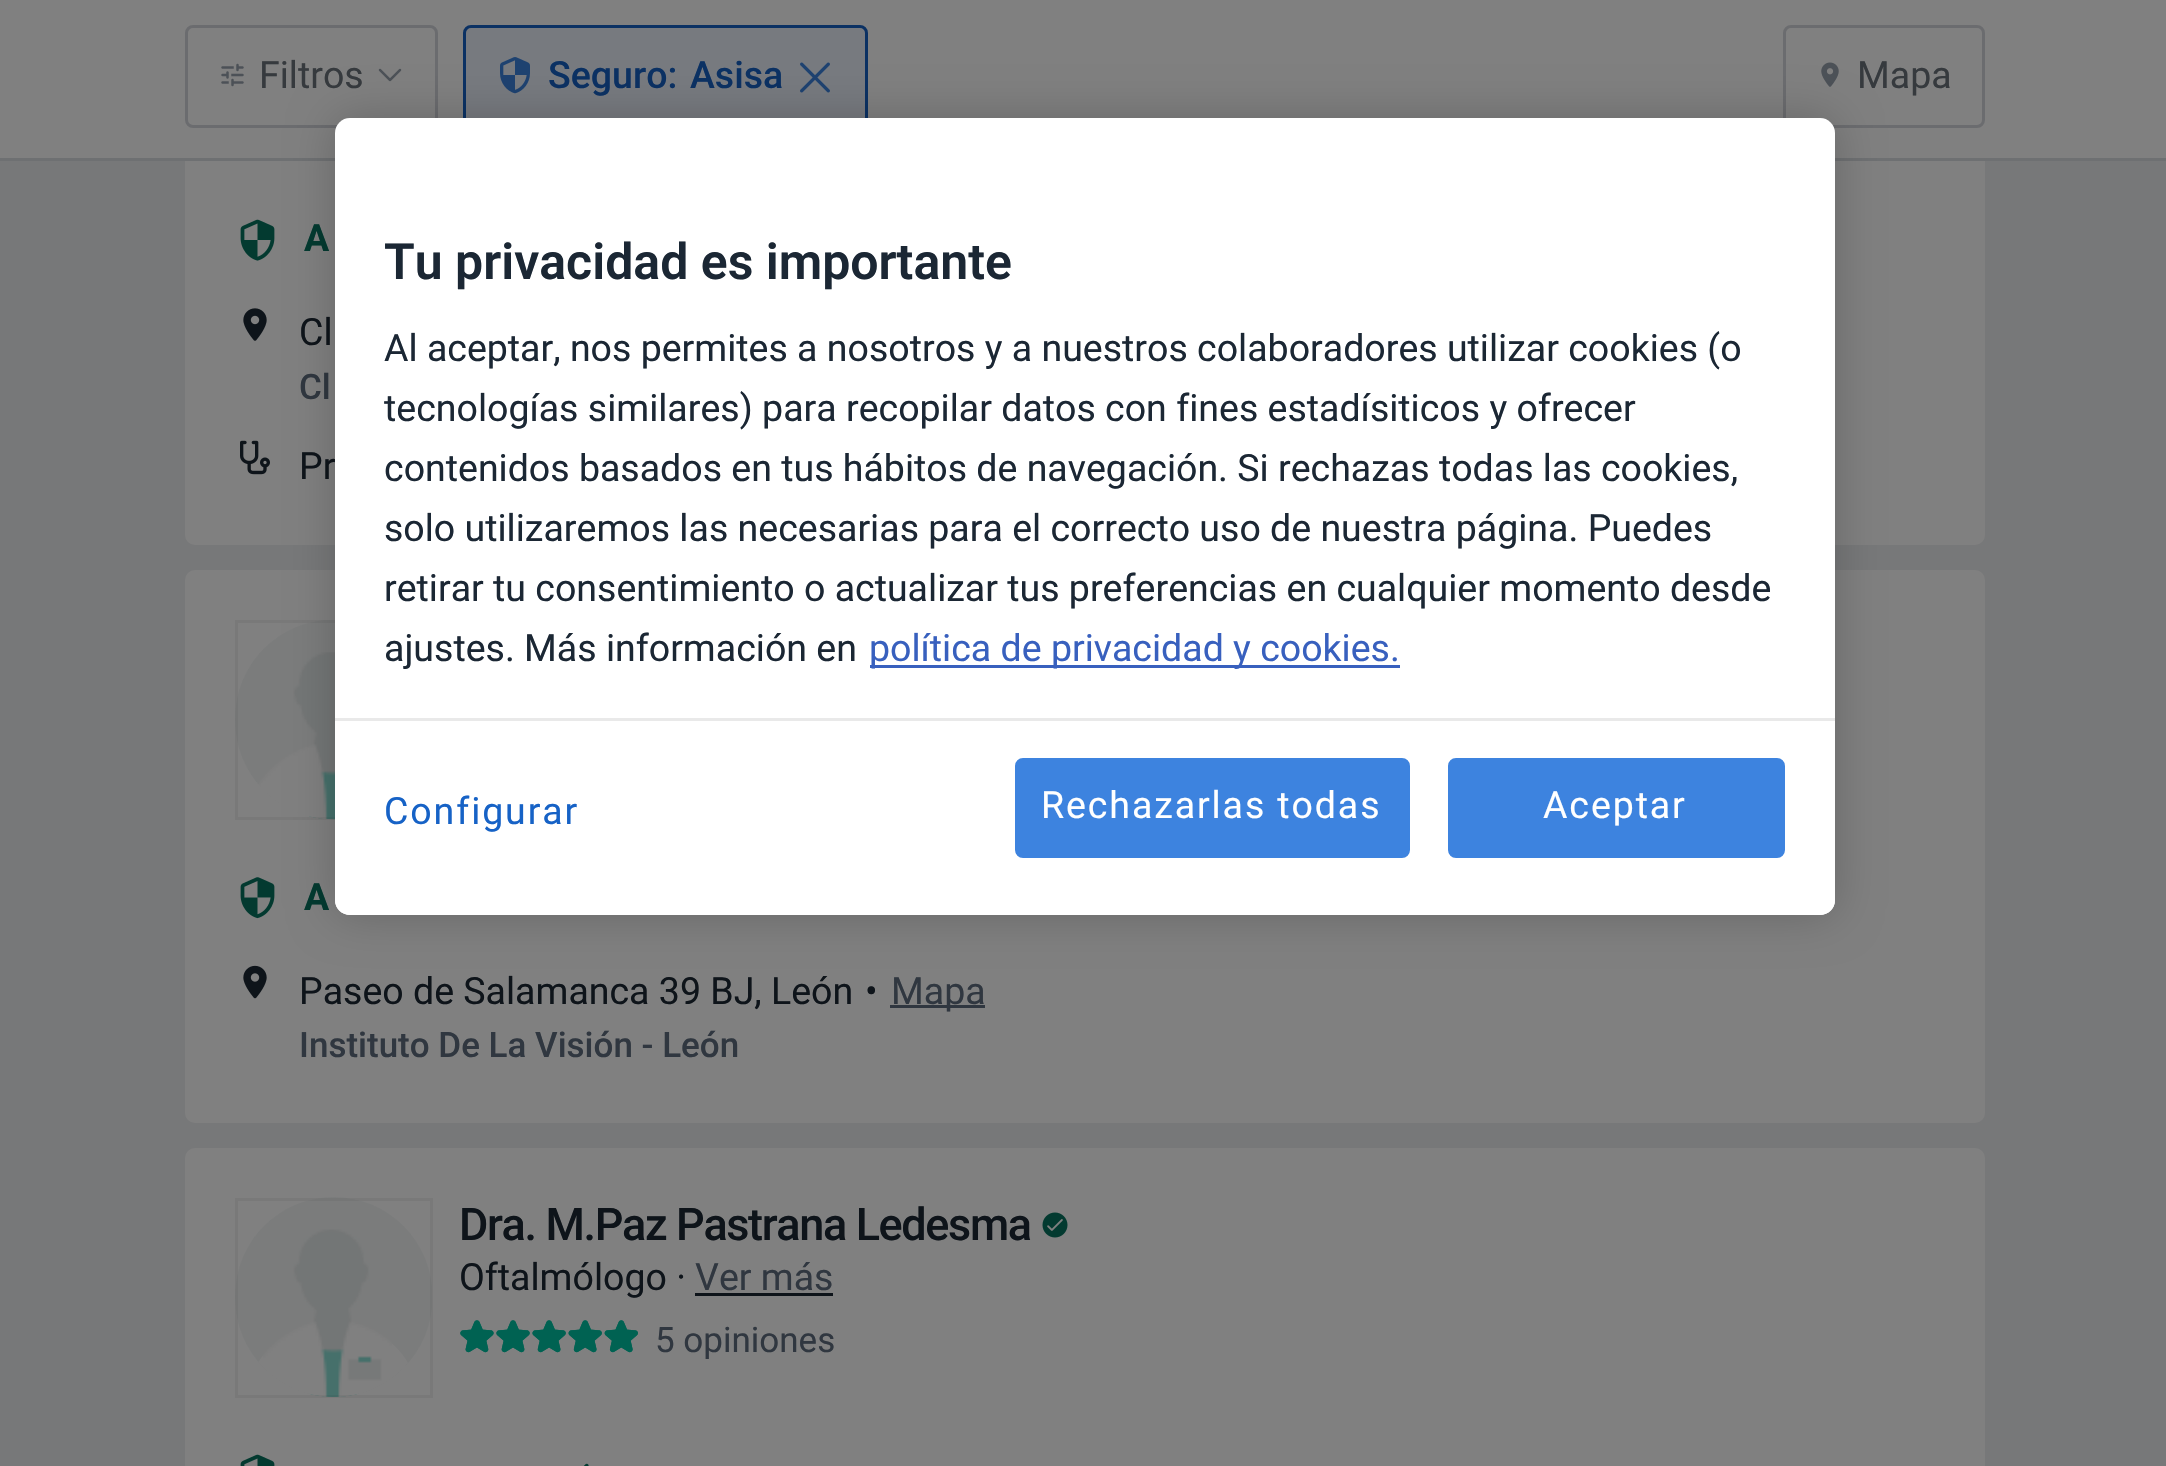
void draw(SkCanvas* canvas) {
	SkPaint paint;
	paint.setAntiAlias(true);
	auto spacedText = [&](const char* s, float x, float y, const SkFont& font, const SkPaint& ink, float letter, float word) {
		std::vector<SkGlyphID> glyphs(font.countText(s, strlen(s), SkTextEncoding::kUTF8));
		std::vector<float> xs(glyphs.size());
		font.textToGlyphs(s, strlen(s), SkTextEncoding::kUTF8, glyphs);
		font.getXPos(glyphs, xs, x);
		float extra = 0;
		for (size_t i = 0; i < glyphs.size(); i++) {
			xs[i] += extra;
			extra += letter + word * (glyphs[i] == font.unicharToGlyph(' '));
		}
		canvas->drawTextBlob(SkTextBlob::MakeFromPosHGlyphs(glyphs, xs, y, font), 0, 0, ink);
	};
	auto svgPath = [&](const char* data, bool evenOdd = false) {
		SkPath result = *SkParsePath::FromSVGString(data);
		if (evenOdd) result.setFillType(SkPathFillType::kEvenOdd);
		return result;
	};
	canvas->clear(0xff777879);
	paint.setColor(0xff808080);
	canvas->drawRoundRect(SkRect::MakeXYWH(185, -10, 1800, 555), 10, 10, paint);
	canvas->drawRect(SkRect::MakeXYWH(0, 0, 2166, 158), paint);
	paint.setColor(0xff6e7072);
	canvas->drawRect(SkRect::MakeXYWH(0, 158, 2166, 3), paint);
	paint.setStroke(true);
	paint.setStrokeWidth(3);
	paint.setColor(0xff6b6c6f);
	canvas->drawRoundRect(SkRect::MakeXYWH(186.5, 26.5, 250, 100), 6.5, 6.5, paint);
	canvas->drawImageRect(SkImages::DeferredFromEncodedData(SkData::MakeFromFileName("img1.png")), SkRect::MakeXYWH(221, 63, 23, 24), SkSamplingOptions());
	SkFont f1(fontMgr->matchFamilyStyle("Roboto", SkFontStyle::Normal()), 37.5);
	f1.setSubpixel(true);
	paint.setStroke(false);
	paint.setColor(0xff363a3e);
	canvas->drawString("Filtros", 259, 88, f1, paint);
	canvas->drawImageRect(SkImages::DeferredFromEncodedData(SkData::MakeFromFileName("img2.png")), SkRect::MakeXYWH(378, 68, 24, 14), SkSamplingOptions());
	paint.setColor(0xff777a7f);
	canvas->drawRoundRect(SkRect::MakeXYWH(464.5, 26.5, 402, 100), 6.5, 6.5, paint);
	paint.setStroke(true);
	paint.setColor(0xff0b3163);
	canvas->drawRoundRect(SkRect::MakeXYWH(464.5, 26.5, 402, 100), 6.5, 6.5, paint);
	canvas->drawImageRect(SkImages::DeferredFromEncodedData(SkData::MakeFromFileName("img3.png")), SkRect::MakeXYWH(500, 57, 30, 37), SkSamplingOptions());
	SkFont f2(fontMgr->matchFamilyStyle("Roboto", SkFontStyle(500, SkFontStyle::kNormal_Width, SkFontStyle::kUpright_Slant)), 37.5);
	f2.setSubpixel(true);
	paint.setStroke(false);
	canvas->drawString("Seguro:", 548, 88, f2, paint);
	canvas->drawString("Asisa", 690, 88, f2, paint);
	canvas->drawImageRect(SkImages::DeferredFromEncodedData(SkData::MakeFromFileName("img4.png")), SkRect::MakeXYWH(800, 62, 30, 31), SkSamplingOptions());
	paint.setStroke(true);
	paint.setColor(0xff6b6c6f);
	canvas->drawRoundRect(SkRect::MakeXYWH(1784.5, 26.5, 199, 100), 6.5, 6.5, paint);
	canvas->drawImageRect(SkImages::DeferredFromEncodedData(SkData::MakeFromFileName("img5.png")), SkRect::MakeXYWH(1821, 62, 18, 25), SkSamplingOptions());
	paint.setStroke(false);
	paint.setColor(0xff363a3e);
	canvas->drawString("Mapa", 1857, 88, f1, paint);
	canvas->drawImageRect(SkImages::DeferredFromEncodedData(SkData::MakeFromFileName("img6.png")), SkRect::MakeXYWH(240, 219, 35, 42), SkSamplingOptions());
	SkFont f3(fontMgr->matchFamilyStyle("Roboto", SkFontStyle::Bold()), 37.5);
	f3.setSubpixel(true);
	paint.setColor(0xff033a30);
	canvas->drawString("A", 304, 251, f3, paint);
	canvas->drawImageRect(SkImages::DeferredFromEncodedData(SkData::MakeFromFileName("img7.png")), SkRect::MakeXYWH(243, 308, 24, 33), SkSamplingOptions());
	paint.setColor(0xff0e141a);
	canvas->drawString("Cl", 299, 345, f1, paint);
	SkFont f4(fontMgr->matchFamilyStyle("Roboto", SkFontStyle(500, SkFontStyle::kNormal_Width, SkFontStyle::kUpright_Slant)), 35);
	f4.setSubpixel(true);
	paint.setColor(0xff303740);
	canvas->drawString("Cl", 299, 399, f4, paint);
	canvas->drawImageRect(SkImages::DeferredFromEncodedData(SkData::MakeFromFileName("img8.png")), SkRect::MakeXYWH(240, 440, 30, 35), SkSamplingOptions());
	paint.setColor(0xff0e141a);
	canvas->drawString("Pr", 299, 479, f1, paint);
	paint.setColor(0xff808080);
	canvas->drawRoundRect(SkRect::MakeXYWH(185, 570, 1800, 553), 10, 10, paint);
	canvas->drawImageRect(SkImages::DeferredFromEncodedData(SkData::MakeFromFileName("img9.png")), SkRect::MakeXYWH(235, 620, 100, 200), SkSamplingOptions());
	canvas->drawImageRect(SkImages::DeferredFromEncodedData(SkData::MakeFromFileName("img10.png")), SkRect::MakeXYWH(259, 652, 76, 168), SkSamplingOptions());
	paint.setStroke(true);
	paint.setColor(0x0d000000);
	canvas->drawRect(SkRect::MakeXYWH(236.5, 621.5, 195, 197), paint);
	canvas->drawImageRect(SkImages::DeferredFromEncodedData(SkData::MakeFromFileName("img11.png")), SkRect::MakeXYWH(240, 877, 35, 42), SkSamplingOptions());
	paint.setStroke(false);
	paint.setColor(0xff033a30);
	canvas->drawString("A", 304, 910, f3, paint);
	canvas->drawImageRect(SkImages::DeferredFromEncodedData(SkData::MakeFromFileName("img12.png")), SkRect::MakeXYWH(243, 965, 24, 34), SkSamplingOptions());
	paint.setColor(0xff0e141a);
	canvas->drawString("Paseo de Salamanca 39 BJ, León", 299, 1004, f1, paint);
	canvas->drawString("•", 865, 1004, f1, paint);
	paint.setColor(0xff303740);
	canvas->drawRect(SkRect::MakeXYWH(890, 1005, 95, 3), paint);
	canvas->drawString("Mapa", 891, 1004, f1, paint);
	canvas->drawString("Instituto De La Visión - León", 299, 1057, f4, paint);
	paint.setColor(0xff808080);
	canvas->drawRoundRect(SkRect::MakeXYWH(185, 1148, 1800, 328), 10, 10, paint);
	canvas->drawImageRect(SkImages::DeferredFromEncodedData(SkData::MakeFromFileName("img13.png")), SkRect::MakeXYWH(235, 1197, 197, 200), SkSamplingOptions());
	canvas->drawImageRect(SkImages::DeferredFromEncodedData(SkData::MakeFromFileName("img14.png")), SkRect::MakeXYWH(263, 1229, 129, 168), SkSamplingOptions());
	paint.setStroke(true);
	paint.setColor(0x0d000000);
	canvas->drawRect(SkRect::MakeXYWH(236.5, 1199.5, 195, 197), paint);
	SkFont f5(fontMgr->matchFamilyStyle("Roboto", SkFontStyle(500, SkFontStyle::kNormal_Width, SkFontStyle::kUpright_Slant)), 45);
	f5.setSubpixel(true);
	paint.setStroke(false);
	paint.setColor(0xff0e141a);
	spacedText("Dra. M.Paz Pastrana Ledesma", 459, 1240, f5, paint, -1.35, 0);
	canvas->drawImageRect(SkImages::DeferredFromEncodedData(SkData::MakeFromFileName("img15.png")), SkRect::MakeXYWH(1042, 1212, 26, 26), SkSamplingOptions());
	canvas->drawString("Oftalmólogo ·", 459, 1290, f1, paint);
	paint.setColor(0xff303740);
	canvas->drawString("Ver más", 695, 1290, f1, paint);
	paint.setColor(0xff0e141a);
	canvas->drawRect(SkRect::MakeXYWH(695, 1293, 138, 3), paint);
	canvas->drawImageRect(SkImages::DeferredFromEncodedData(SkData::MakeFromFileName("img16.png")), SkRect::MakeXYWH(460, 1320, 178, 33), SkSamplingOptions());
	canvas->drawImageRect(SkImages::DeferredFromEncodedData(SkData::MakeFromFileName("img17.png")), SkRect::MakeXYWH(460, 1320, 178, 33), SkSamplingOptions());
	SkFont f6(fontMgr->matchFamilyStyle("Roboto", SkFontStyle::Normal()), 35);
	f6.setSubpixel(true);
	paint.setColor(0xff303740);
	canvas->drawString("5 opiniones", 655, 1352, f6, paint);
	canvas->drawImageRect(SkImages::DeferredFromEncodedData(SkData::MakeFromFileName("img18.png")), SkRect::MakeXYWH(240, 1454, 35, 12), SkSamplingOptions());
	canvas->drawImageRect(SkImages::DeferredFromEncodedData(SkData::MakeFromFileName("img19.png")), SkRect::MakeXYWH(583, 1463, 6, 3), SkSamplingOptions());
	canvas->save();
	canvas->clipPath(svgPath("M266 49H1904V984H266ZM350 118H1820C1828.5 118 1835 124.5 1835 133V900C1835 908.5 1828.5 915 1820 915H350C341.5 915 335 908.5 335 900V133C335 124.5 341.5 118 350 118Z", true), true);
	paint.setColor(0x33000000);
	paint.setMaskFilter(SkMaskFilter::MakeBlur(kNormal_SkBlurStyle, 22.5));
	canvas->drawRoundRect(SkRect::MakeXYWH(335, 118, 1500, 797), 15, 15, paint);
	paint.setMaskFilter(nullptr);
	canvas->restore();
	paint.setColor(0xffffffff);
	canvas->drawRoundRect(SkRect::MakeXYWH(335, 118, 1500, 797), 15, 15, paint);
	SkFont f7(fontMgr->matchFamilyStyle("Roboto", SkFontStyle(600, SkFontStyle::kNormal_Width, SkFontStyle::kUpright_Slant)), 50);
	f7.setSubpixel(true);
	paint.setColor(0xff1b2734);
	canvas->drawString("Tu privacidad es importante", 384, 279, f7, paint);
	canvas->drawString("Al aceptar, nos permites a nosotros y a nuestros colaboradores utilizar cookies (o", 384, 361, f1, paint);
	canvas->drawString("tecnologías similares) para recopilar datos con fines estadísiticos y ofrecer", 384, 421, f1, paint);
	canvas->drawString("contenidos basados en tus hábitos de navegación. Si rechazas todas las cookies,", 384, 481, f1, paint);
	canvas->drawString("solo utilizaremos las necesarias para el correcto uso de nuestra página. Puedes", 384, 541, f1, paint);
	canvas->drawString("retirar tu consentimiento o actualizar tus preferencias en cualquier momento desde", 384, 601, f1, paint);
	canvas->drawString("ajustes. Más información en", 384, 661, f1, paint);
	paint.setColor(0xff3860be);
	canvas->drawRect(SkRect::MakeXYWH(870, 665, 530, 3), paint);
	canvas->drawString("política de privacidad y cookies.", 869, 661, f1, paint);
	paint.setColor(0xffffffff);
	canvas->drawPath(svgPath("M335 718H1835V900C1835 908.5 1828.5 915 1820 915H350C341.5 915 335 908.5 335 900Z"), paint);
	paint.setColor(0xffe9e9e9);
	canvas->drawRect(SkRect::MakeXYWH(335, 718, 1500, 3), paint);
	paint.setColor(0xff1662c6);
	spacedText("Configurar", 384, 824, f1, paint, 1.9, 0);
	paint.setColor(0xff3d83df);
	canvas->drawRoundRect(SkRect::MakeXYWH(1016.5, 759.5, 392, 97), 6.5, 6.5, paint);
	paint.setStroke(true);
	canvas->drawRoundRect(SkRect::MakeXYWH(1016.5, 759.5, 392, 97), 6.5, 6.5, paint);
	paint.setStroke(false);
	paint.setColor(0xffffffff);
	spacedText("Rechazarlas todas", 1041, 818, f1, paint, 1.9, 0);
	paint.setColor(0xff3d83df);
	canvas->drawRoundRect(SkRect::MakeXYWH(1449.5, 759.5, 334, 97), 6.5, 6.5, paint);
	paint.setStroke(true);
	canvas->drawRoundRect(SkRect::MakeXYWH(1449.5, 759.5, 334, 97), 6.5, 6.5, paint);
	paint.setStroke(false);
	paint.setColor(0xffffffff);
	spacedText("Aceptar", 1543, 818, f1, paint, 1.9, 0);
}
